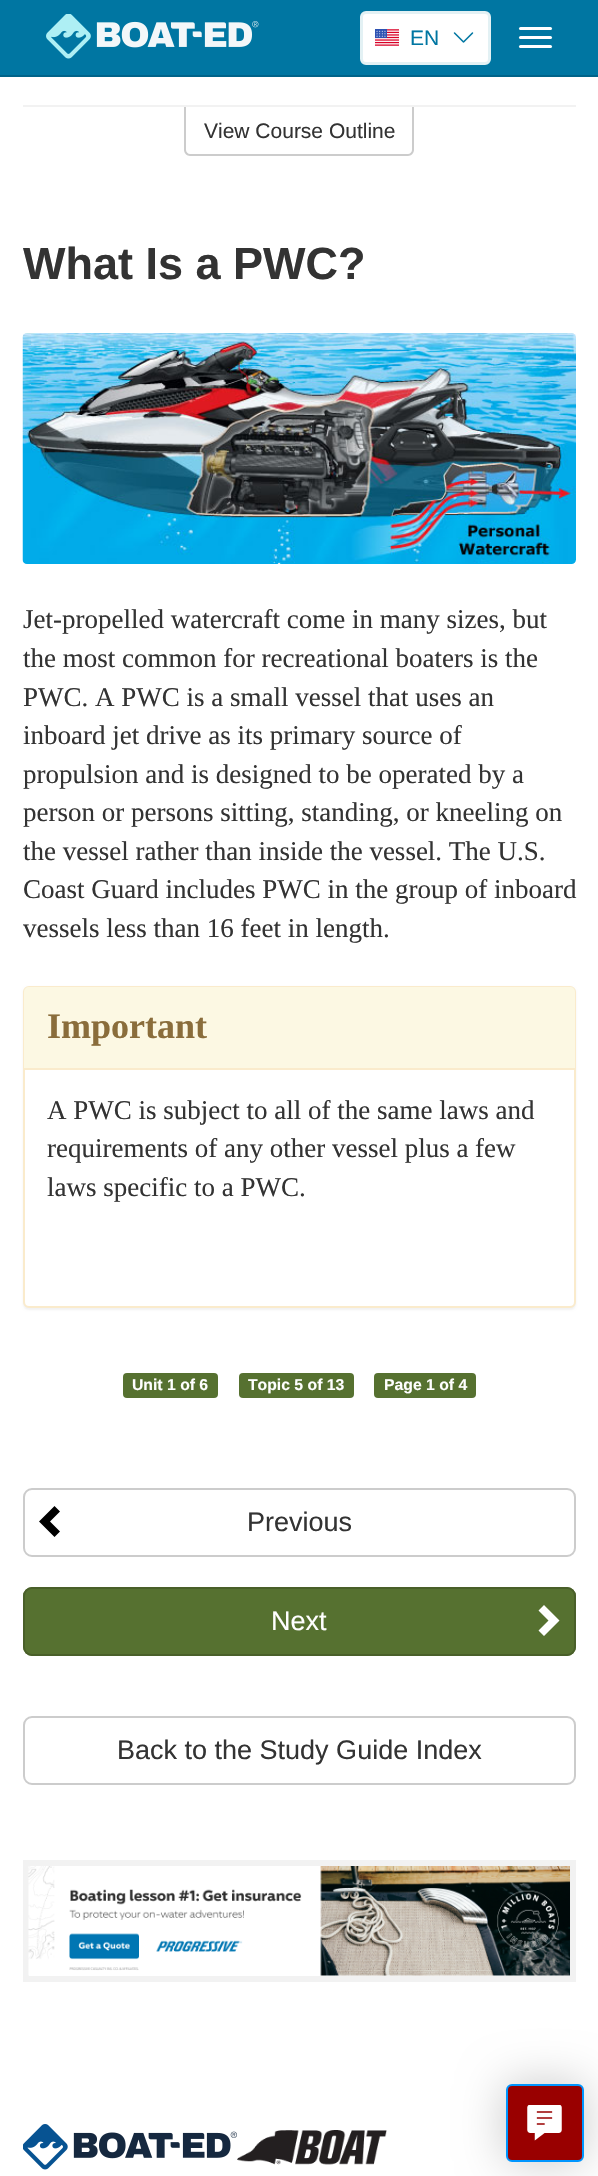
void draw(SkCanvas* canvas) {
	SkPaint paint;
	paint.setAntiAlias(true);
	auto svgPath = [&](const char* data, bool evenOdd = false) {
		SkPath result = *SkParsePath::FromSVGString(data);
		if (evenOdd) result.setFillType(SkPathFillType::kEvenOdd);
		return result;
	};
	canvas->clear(0xffffffff);
	paint.setColor(0xff0076a2);
	canvas->drawRect(SkRect::MakeXYWH(0, 0, 598, 75), paint);
	paint.setColor(0xff006389);
	canvas->drawRect(SkRect::MakeXYWH(0, 75, 598, 2), paint);
	canvas->drawImageRect(SkImages::DeferredFromEncodedData(SkData::MakeFromFileName("img1.png")), SkRect::MakeXYWH(46, 14, 213, 45), SkSamplingOptions());
	paint.setColor(0xffffffff);
	canvas->drawRoundRect(SkRect::MakeXYWH(361.5, 12.5, 128, 51), 4.5, 4.5, paint);
	paint.setStroke(true);
	paint.setStrokeWidth(3);
	paint.setColor(0xffe3f1f4);
	canvas->drawRoundRect(SkRect::MakeXYWH(361.5, 12.5, 128, 51), 4.5, 4.5, paint);
	canvas->drawImageRect(SkImages::DeferredFromEncodedData(SkData::MakeFromFileName("img2.png")), SkRect::MakeXYWH(375, 29, 24, 17), SkSamplingOptions());
	SkFont f1(fontMgr->matchFamilyStyle("Liberation Sans", SkFontStyle::Normal()), 21);
	f1.setSubpixel(true);
	paint.setStroke(false);
	paint.setColor(0xff0076a2);
	canvas->drawString("EN", 410, 45, f1, paint);
	canvas->drawImageRect(SkImages::DeferredFromEncodedData(SkData::MakeFromFileName("img3.png")), SkRect::MakeXYWH(453, 32, 21, 11), SkSamplingOptions());
	paint.setColor(0xffffffff);
	canvas->drawRoundRect(SkRect::MakeXYWH(519, 27, 33, 3), 1.5, 1.5, paint);
	canvas->drawRoundRect(SkRect::MakeXYWH(519, 36, 33, 3), 1.5, 1.5, paint);
	canvas->drawRoundRect(SkRect::MakeXYWH(519, 45, 33, 3), 1.5, 1.5, paint);
	paint.setColor(0xffcccccc);
	canvas->drawPath(svgPath("M184 106H414V150C414 153 411 156 408 156H190C187 156 184 153 184 150ZM186 106H412V150C412 152 410 154 408 154H190C188 154 186 152 186 150Z", true), paint);
	paint.setColor(0xfff2f2f2);
	canvas->drawRect(SkRect::MakeXYWH(23, 105, 553, 2), paint);
	paint.setColor(0xff333333);
	canvas->drawString("View Course Outline", 204, 138, f1, paint);
	SkFont f2(fontMgr->matchFamilyStyle("Liberation Sans", SkFontStyle::Bold()), 45);
	f2.setSubpixel(true);
	canvas->drawString("What Is a PWC?", 23, 279, f2, paint);
	canvas->drawImageRect(SkImages::DeferredFromEncodedData(SkData::MakeFromFileName("img4.png")), SkRect::MakeXYWH(22, 333, 554, 231), SkSamplingOptions());
	SkFont f3(fontMgr->matchFamilyStyle("Liberation Serif", SkFontStyle::Normal()), 27);
	f3.setSubpixel(true);
	canvas->drawString("Jet-propelled watercraft come in many sizes, but", 23, 628, f3, paint);
	canvas->drawString("the most common for recreational boaters is the", 23, 667, f3, paint);
	canvas->drawString("PWC. A PWC is a small vessel that uses an", 23, 706, f3, paint);
	canvas->drawString("inboard jet drive as its primary source of", 23, 744, f3, paint);
	canvas->drawString("propulsion and is designed to be operated by a", 23, 783, f3, paint);
	canvas->drawString("person or persons sitting, standing, or kneeling on", 23, 821, f3, paint);
	canvas->drawString("the vessel rather than inside the vessel. The U.S.", 23, 860, f3, paint);
	canvas->drawString("Coast Guard includes PWC in the group of inboard", 23, 898, f3, paint);
	canvas->drawString("vessels less than 16 feet in length.", 23, 937, f3, paint);
	paint.setColor(0x0d000000);
	paint.setMaskFilter(SkMaskFilter::MakeBlur(kNormal_SkBlurStyle, 1));
	canvas->drawRoundRect(SkRect::MakeXYWH(23, 987, 553, 323), 6, 6, paint);
	paint.setMaskFilter(nullptr);
	paint.setColor(0xffffffff);
	canvas->drawRoundRect(SkRect::MakeXYWH(24, 987, 551, 320), 5, 5, paint);
	paint.setStroke(true);
	paint.setStrokeWidth(2);
	paint.setColor(0xfffaebcc);
	canvas->drawRoundRect(SkRect::MakeXYWH(24, 987, 551, 320), 5, 5, paint);
	paint.setStroke(false);
	paint.setColor(0xfffcf8e3);
	canvas->drawPath(svgPath("M29 987H570C573 987 575 989 575 992V1070H24V992C24 989 26 987 29 987Z"), paint);
	paint.setColor(0xfffaebcc);
	canvas->drawRect(SkRect::MakeXYWH(24, 1068, 551, 2), paint);
	SkFont f4(fontMgr->matchFamilyStyle("Liberation Serif", SkFontStyle::Bold()), 36);
	f4.setSubpixel(true);
	paint.setColor(0xff8a6d3b);
	canvas->drawString("Important", 47, 1038, f4, paint);
	paint.setColor(0xff333333);
	canvas->drawString("A PWC is subject to all of the same laws and", 47, 1119, f3, paint);
	canvas->drawString("requirements of any other vessel plus a few", 47, 1157, f3, paint);
	canvas->drawString("laws specific to a PWC.", 47, 1196, f3, paint);
	paint.setColor(0xff567130);
	canvas->drawRoundRect(SkRect::MakeXYWH(123, 1373, 95, 25), 4, 4, paint);
	SkFont f5(fontMgr->matchFamilyStyle("Liberation Sans", SkFontStyle::Bold()), 15.75);
	f5.setSubpixel(true);
	paint.setColor(0xffffffff);
	canvas->drawString("Unit 1 of 6", 132, 1390, f5, paint);
	paint.setColor(0xff567130);
	canvas->drawRoundRect(SkRect::MakeXYWH(239, 1373, 115, 25), 4, 4, paint);
	paint.setColor(0xffffffff);
	canvas->drawString("Topic 5 of 13", 248, 1390, f5, paint);
	paint.setColor(0xff567130);
	canvas->drawRoundRect(SkRect::MakeXYWH(374, 1373, 102, 25), 4, 4, paint);
	paint.setColor(0xffffffff);
	canvas->drawString("Page 1 of 4", 384, 1390, f5, paint);
	paint.setColor(0xff000000);
	canvas->drawPath(svgPath("M39 1521.5L54.5 1506L60 1511.5L50 1521.5L60 1531.5L54.5 1537Z"), paint);
	paint.setStroke(true);
	paint.setColor(0xffcccccc);
	canvas->drawRoundRect(SkRect::MakeXYWH(24, 1489, 551, 67), 8, 8, paint);
	SkFont f6(fontMgr->matchFamilyStyle("Liberation Sans", SkFontStyle::Normal()), 27);
	f6.setSubpixel(true);
	paint.setStroke(false);
	paint.setColor(0xff333333);
	canvas->drawString("Previous", 247, 1531, f6, paint);
	paint.setColor(0xff567130);
	canvas->drawRoundRect(SkRect::MakeXYWH(23, 1587, 553, 69), 9, 9, paint);
	paint.setColor(0xffffffff);
	canvas->drawPath(svgPath("M559.5 1620.5L544 1605L538.5 1610.5L548.5 1620.5L538.5 1630.5L544 1636Z"), paint);
	paint.setStroke(true);
	paint.setColor(0xff495f29);
	canvas->drawRoundRect(SkRect::MakeXYWH(24, 1588, 551, 67), 8, 8, paint);
	paint.setStroke(false);
	paint.setColor(0xffffffff);
	canvas->drawString("Next", 271, 1630, f6, paint);
	paint.setStroke(true);
	paint.setColor(0xffcccccc);
	canvas->drawRoundRect(SkRect::MakeXYWH(24, 1717, 551, 67), 8, 8, paint);
	paint.setStroke(false);
	paint.setColor(0xff333333);
	canvas->drawString("Back to the Study Guide Index", 117, 1759, f6, paint);
	paint.setStroke(true);
	paint.setStrokeWidth(6);
	paint.setColor(0xfff2f2f2);
	canvas->drawRect(SkRect::MakeXYWH(26, 1863, 547, 116), paint);
	canvas->drawImageRect(SkImages::DeferredFromEncodedData(SkData::MakeFromFileName("img5.png")), SkRect::MakeXYWH(28, 1866, 542, 110), SkSamplingOptions());
	canvas->drawImageRect(SkImages::DeferredFromEncodedData(SkData::MakeFromFileName("img6.png")), SkRect::MakeXYWH(23, 2124, 214, 46), SkSamplingOptions());
	canvas->drawImageRect(SkImages::DeferredFromEncodedData(SkData::MakeFromFileName("img7.png")), SkRect::MakeXYWH(237, 2130, 150, 35), SkSamplingOptions());
	paint.setStroke(false);
	paint.setColor(0x33000000);
	paint.setMaskFilter(SkMaskFilter::MakeBlur(kNormal_SkBlurStyle, 22.5));
	canvas->drawRoundRect(SkRect::MakeXYWH(504, 2082, 81, 81), 8, 8, paint);
	paint.setMaskFilter(nullptr);
	paint.setColor(0xff990000);
	canvas->drawRoundRect(SkRect::MakeXYWH(507, 2085, 76, 76), 5, 5, paint);
	paint.setStroke(true);
	paint.setStrokeWidth(2);
	paint.setColor(0xff0096ff);
	canvas->drawRoundRect(SkRect::MakeXYWH(507, 2085, 76, 76), 5, 5, paint);
	canvas->drawImageRect(SkImages::DeferredFromEncodedData(SkData::MakeFromFileName("img8.png")), SkRect::MakeXYWH(527, 2105, 35, 36), SkSamplingOptions());
}
